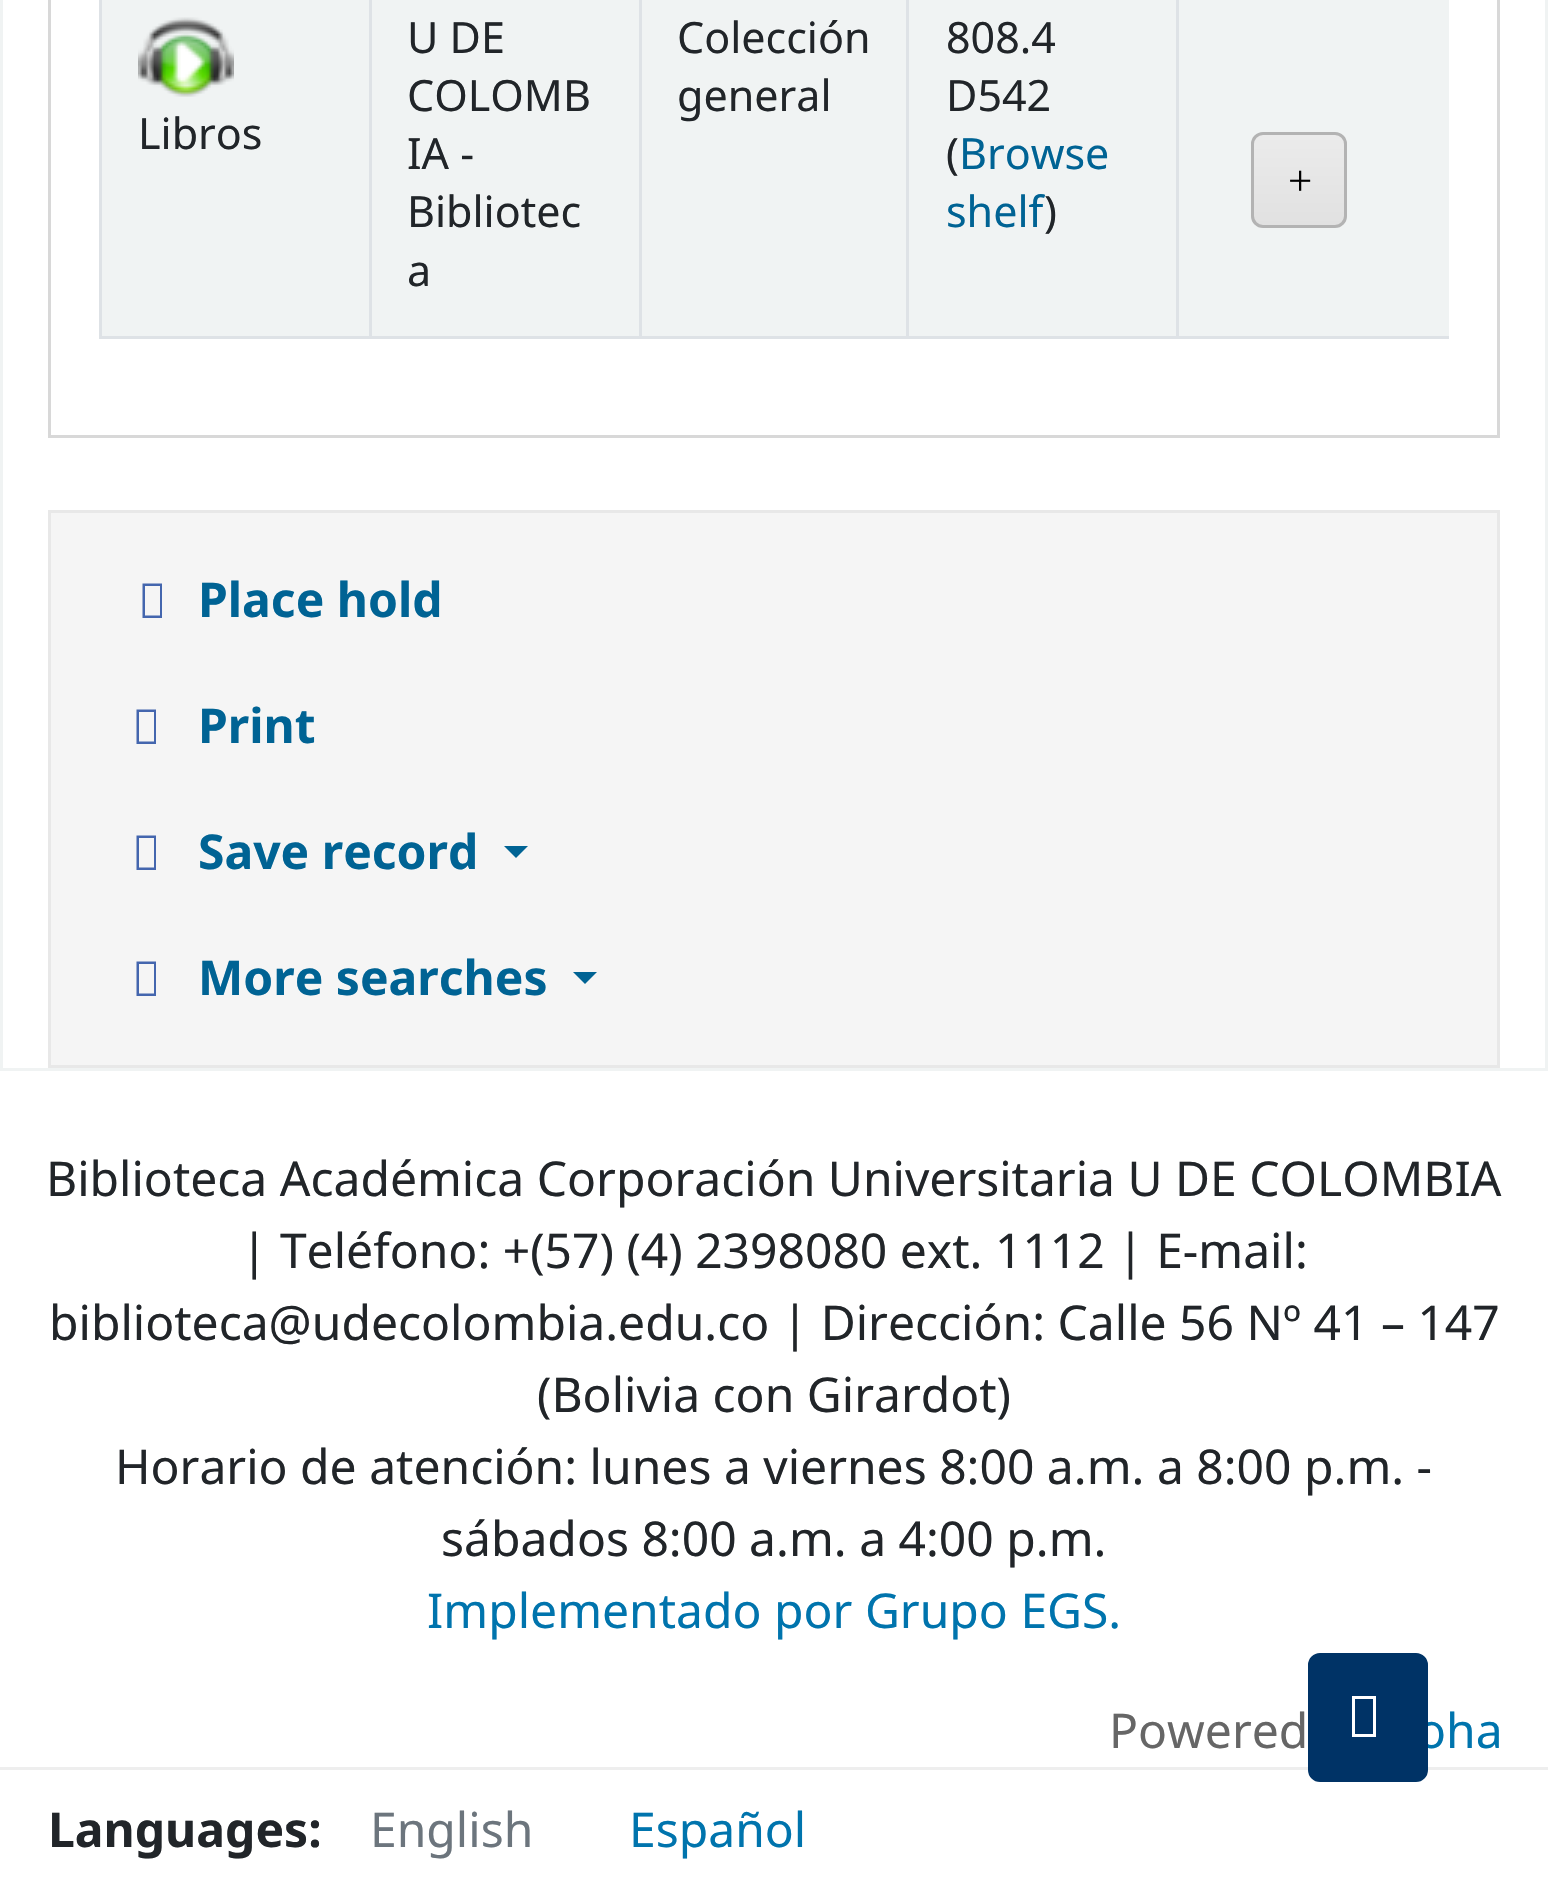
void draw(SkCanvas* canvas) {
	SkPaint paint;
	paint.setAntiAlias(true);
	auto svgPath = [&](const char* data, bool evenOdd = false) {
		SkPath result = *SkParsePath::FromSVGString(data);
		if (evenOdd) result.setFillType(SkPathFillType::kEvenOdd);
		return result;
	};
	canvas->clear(0xffffffff);
	paint.setStroke(true);
	paint.setStrokeWidth(3);
	paint.setColor(0xfff0f3f3);
	canvas->drawRect(SkRect::MakeXYWH(1.5, -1.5, 1545, 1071), paint);
	paint.setStroke(false);
	paint.setColor(0xffd8d8d8);
	canvas->drawRect(SkRect::MakeXYWH(1497, 0, 3, 438), paint);
	canvas->drawRect(SkRect::MakeXYWH(48, 435, 1452, 3), paint);
	canvas->drawRect(SkRect::MakeXYWH(48, 0, 3, 438), paint);
	paint.setColor(0xffdee2e6);
	canvas->drawRect(SkRect::MakeXYWH(99, 336, 1350, 3), paint);
	canvas->drawRect(SkRect::MakeXYWH(99, 0, 3, 339), paint);
	paint.setColor(0xfff0f3f3);
	canvas->drawRect(SkRect::MakeXYWH(102, 0, 267, 336), paint);
	canvas->drawImageRect(SkImages::DeferredFromEncodedData(SkData::MakeFromFileName("img1.png")), SkRect::MakeXYWH(138, 17, 96, 80), SkSamplingOptions());
	SkFont f1(fontMgr->matchFamilyStyle("Noto Sans", SkFontStyle::Normal()), 43);
	f1.setSubpixel(true);
	paint.setColor(0xff212529);
	canvas->drawString("Libros", 138, 149, f1, paint);
	paint.setColor(0xfff0f3f3);
	canvas->drawRect(SkRect::MakeXYWH(372, 0, 267, 336), paint);
	paint.setColor(0xffdee2e6);
	canvas->drawRect(SkRect::MakeXYWH(369, 0, 3, 339), paint);
	paint.setColor(0xff212529);
	canvas->drawString("U DE", 407, 53, f1, paint);
	canvas->drawString("COLOMB", 407, 111, f1, paint);
	canvas->drawString("IA -", 407, 169, f1, paint);
	canvas->drawString("Bibliotec", 407, 227, f1, paint);
	canvas->drawString("a", 407, 286, f1, paint);
	paint.setColor(0xfff0f3f3);
	canvas->drawRect(SkRect::MakeXYWH(642, 0, 264, 336), paint);
	paint.setColor(0xffdee2e6);
	canvas->drawRect(SkRect::MakeXYWH(639, 0, 3, 339), paint);
	paint.setColor(0xff212529);
	canvas->drawString("Colección", 677, 53, f1, paint);
	canvas->drawString("general", 677, 111, f1, paint);
	paint.setColor(0xfff0f3f3);
	canvas->drawRect(SkRect::MakeXYWH(909, 0, 267, 336), paint);
	paint.setColor(0xffdee2e6);
	canvas->drawRect(SkRect::MakeXYWH(906, 0, 3, 339), paint);
	paint.setColor(0xff212529);
	canvas->drawString("808.4", 946, 53, f1, paint);
	canvas->drawString("D542", 946, 111, f1, paint);
	canvas->drawString("(", 946, 169, f1, paint);
	paint.setColor(0xff006394);
	canvas->drawString("Browse", 959, 169, f1, paint);
	canvas->drawString("shelf", 946, 227, f1, paint);
	paint.setColor(0xff212529);
	canvas->drawString(")", 1044, 227, f1, paint);
	paint.setColor(0xffdee2e6);
	canvas->drawRect(SkRect::MakeXYWH(1176, 0, 3, 339), paint);
	paint.setColor(0xfff0f3f3);
	canvas->drawRect(SkRect::MakeXYWH(1179, 0, 270, 336), paint);
	canvas->save();
	canvas->clipPath(svgPath("M1263 132H1335C1341.5 132 1347 137.5 1347 144V216C1347 222.5 1341.5 228 1335 228H1263C1256.5 228 1251 222.5 1251 216V144C1251 137.5 1256.5 132 1263 132Z"), true);
	{
		const SkColor colors[] = {0xffebebeb, 0xffe1e1e1};
		const float stops[] = {0, 1};
		const SkPoint ends[] = {{1299, 135}, {1299, 225}};
		paint.setShader(SkGradientShader::MakeLinear(ends, colors, stops, 2, SkTileMode::kClamp));
		paint.setAlpha(255);
	}
	canvas->drawRect(SkRect::MakeXYWH(1251, 135, 96, 90), paint);
	canvas->restore();
	paint.setStroke(true);
	paint.setShader(nullptr);
	paint.setColor(0xffb3b3b3);
	canvas->drawRoundRect(SkRect::MakeXYWH(1252.5, 133.5, 93, 93), 10.5, 10.5, paint);
	SkFont f2(fontMgr->matchFamilyStyle("Liberation Serif", SkFontStyle::Normal()), 43);
	f2.setSubpixel(true);
	paint.setStroke(false);
	paint.setColor(0xff000000);
	canvas->drawString("+", 1288, 195, f2, paint);
	paint.setColor(0xfff5f5f5);
	canvas->drawRect(SkRect::MakeXYWH(49.5, 511.5, 1449, 555), paint);
	paint.setStroke(true);
	paint.setColor(0xffe8e8e8);
	canvas->drawRect(SkRect::MakeXYWH(49.5, 511.5, 1449, 555), paint);
	paint.setStroke(false);
	paint.setColor(0xff4466ae);
	canvas->drawPath(svgPath("M142.5 618V583.5H162V618ZM145 615.5H160V586H145Z"), paint);
	SkFont f3(fontMgr->matchFamilyStyle("Noto Sans", SkFontStyle::Bold()), 48);
	f3.setSubpixel(true);
	paint.setColor(0xff006394);
	canvas->drawString("Place hold", 198, 617, f3, paint);
	paint.setColor(0xff4466ae);
	canvas->drawPath(svgPath("M136.5 744V709.5H156V744ZM139 741.5H154V712H139Z"), paint);
	paint.setColor(0xff006394);
	canvas->drawString("Print", 198, 743, f3, paint);
	paint.setColor(0xff4466ae);
	canvas->drawPath(svgPath("M136.5 870V835.5H156V870ZM139 867.5H154V838H139Z"), paint);
	paint.setColor(0xff006394);
	canvas->drawString("Save record", 198, 869, f3, paint);
	canvas->drawPath(svgPath("M504 846H528L516 858Z"), paint);
	paint.setColor(0xff4466ae);
	canvas->drawPath(svgPath("M136.5 996V961.5H156V996ZM139 993.5H154V964H139Z"), paint);
	paint.setColor(0xff006394);
	canvas->drawString("More searches", 198, 995, f3, paint);
	canvas->drawPath(svgPath("M573 972H597L585 984Z"), paint);
	SkFont f4(fontMgr->matchFamilyStyle("Noto Sans", SkFontStyle::Normal()), 48);
	f4.setSubpixel(true);
	paint.setColor(0xff212529);
	canvas->drawString("Biblioteca Académica Corporación Universitaria U DE COLOMBIA", 46, 1196, f4, paint);
	canvas->drawString("| Teléfono: +(57) (4) 2398080 ext. 1112 | E-mail:", 241, 1268, f4, paint);
	canvas->drawString("biblioteca@udecolombia.edu.co | Dirección: Calle 56 Nº 41 – 147", 49, 1340, f4, paint);
	canvas->drawString("(Bolivia con Girardot)", 537, 1412, f4, paint);
	canvas->drawString("Horario de atención: lunes a viernes 8:00 a.m. a 8:00 p.m. -", 115, 1484, f4, paint);
	canvas->drawString("sábados 8:00 a.m. a 4:00 p.m.", 441, 1556, f4, paint);
	paint.setColor(0xff0074ad);
	canvas->drawString("Implementado por Grupo EGS.", 427, 1628, f4, paint);
	paint.setColor(0xff666666);
	canvas->drawString("Powered", 1109, 1748, f4, paint);
	paint.setColor(0xff0074ad);
	canvas->drawString("oha", 1417, 1748, f4, paint);
	paint.setColor(0xffeeeeee);
	canvas->drawRect(SkRect::MakeXYWH(0, 1767, 1548, 3), paint);
	paint.setColor(0xff003366);
	canvas->drawRoundRect(SkRect::MakeXYWH(1309.5, 1654.5, 117, 126), 10.5, 10.5, paint);
	paint.setStroke(true);
	canvas->drawRoundRect(SkRect::MakeXYWH(1309.5, 1654.5, 117, 126), 10.5, 10.5, paint);
	paint.setStroke(false);
	paint.setColor(0xffffffff);
	canvas->drawPath(svgPath("M1352 1737V1696H1376V1737ZM1355 1734H1373V1699H1355Z"), paint);
	paint.setColor(0xff212529);
	canvas->drawString("Languages:", 48, 1847, f3, paint);
	paint.setColor(0xff6c757d);
	canvas->drawString("English", 370, 1847, f4, paint);
	paint.setColor(0xff0074ad);
	canvas->drawString("Español", 629, 1847, f4, paint);
}
